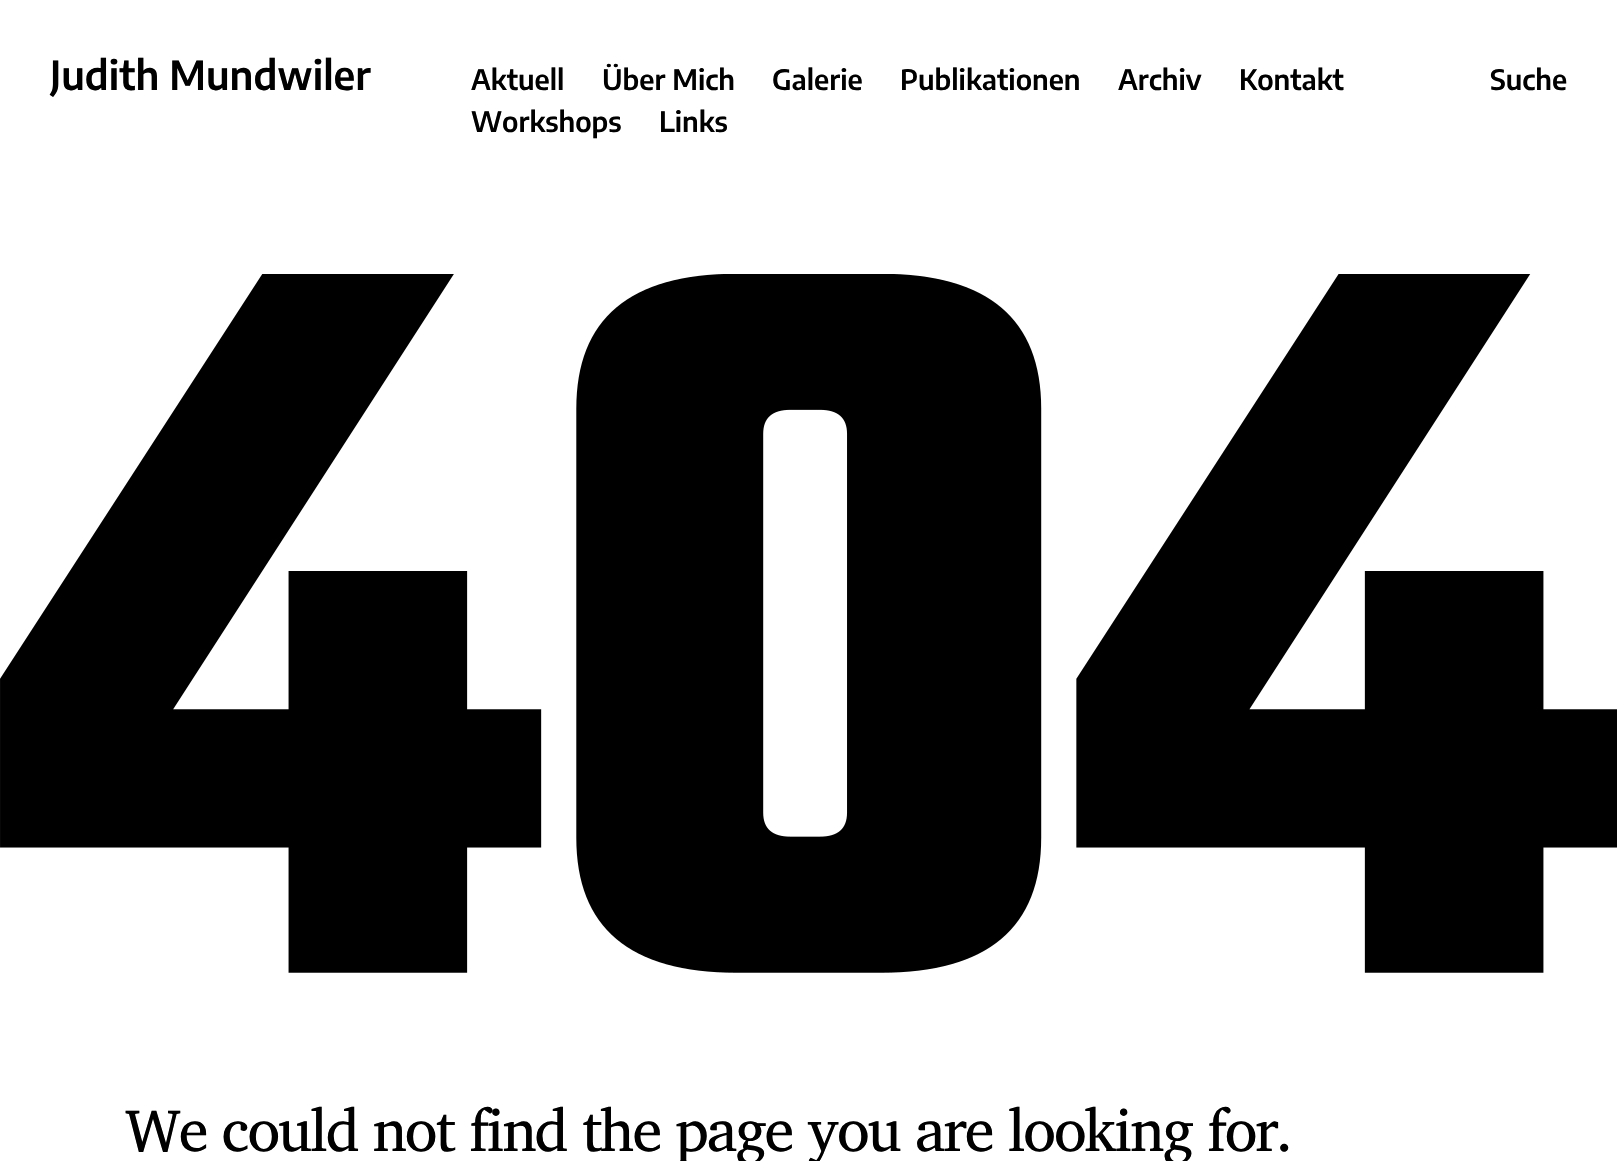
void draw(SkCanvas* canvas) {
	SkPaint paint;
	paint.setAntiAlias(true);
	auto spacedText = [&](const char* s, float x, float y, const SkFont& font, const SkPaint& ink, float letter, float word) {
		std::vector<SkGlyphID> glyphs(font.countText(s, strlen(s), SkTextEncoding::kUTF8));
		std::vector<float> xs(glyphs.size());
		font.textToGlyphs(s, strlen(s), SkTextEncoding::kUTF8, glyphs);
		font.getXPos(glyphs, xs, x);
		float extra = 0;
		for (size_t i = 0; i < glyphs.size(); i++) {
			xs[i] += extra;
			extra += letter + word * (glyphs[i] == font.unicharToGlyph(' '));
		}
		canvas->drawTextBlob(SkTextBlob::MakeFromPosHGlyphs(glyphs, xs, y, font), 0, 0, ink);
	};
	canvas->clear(0xffffffff);
	SkFont f1(fontMgr->matchFamilyStyle("Encode Sans Condensed", SkFontStyle(600, SkFontStyle::kNormal_Width, SkFontStyle::kUpright_Slant)), 40);
	f1.setSubpixel(true);
	paint.setColor(0xff000000);
	canvas->drawString("Judith Mundwiler", 50, 90, f1, paint);
	SkFont f2(fontMgr->matchFamilyStyle("Encode Sans Condensed", SkFontStyle(600, SkFontStyle::kNormal_Width, SkFontStyle::kUpright_Slant)), 28);
	f2.setSubpixel(true);
	canvas->drawString("Aktuell", 471, 90, f2, paint);
	canvas->drawString("Über Mich", 602, 90, f2, paint);
	canvas->drawString("Galerie", 772, 90, f2, paint);
	canvas->drawString("Publikationen", 900, 90, f2, paint);
	canvas->drawString("Archiv", 1118, 90, f2, paint);
	canvas->drawString("Kontakt", 1239, 90, f2, paint);
	canvas->drawString("Workshops", 471, 132, f2, paint);
	canvas->drawString("Links", 659, 132, f2, paint);
	canvas->drawString("Suche", 1490, 90, f2, paint);
	canvas->drawImageRect(SkImages::DeferredFromEncodedData(SkData::MakeFromFileName("img1.png")), SkRect::MakeXYWH(0, 274, 1617, 699), SkSamplingOptions());
	SkFont f3(fontMgr->matchFamilyStyle("Charis SIL", SkFontStyle::Normal()), 60);
	f3.setSubpixel(true);
	spacedText("We could not find the page you are looking for.", 125, 1151, f3, paint, -2.1, 0);
}
